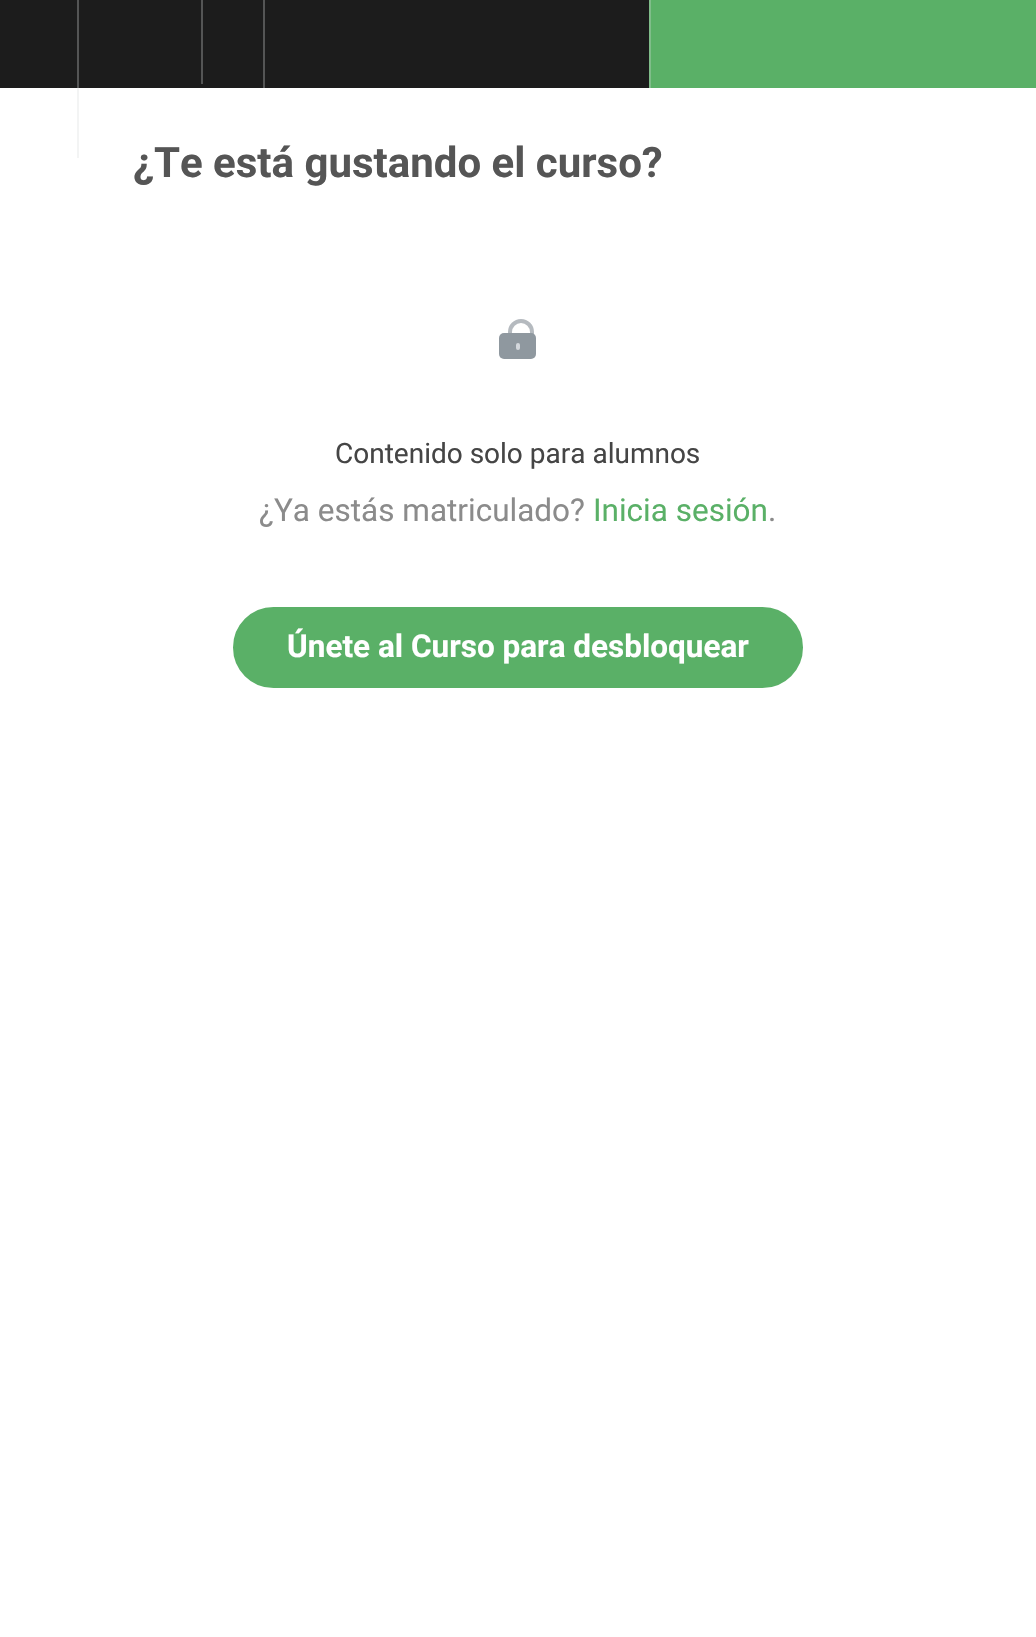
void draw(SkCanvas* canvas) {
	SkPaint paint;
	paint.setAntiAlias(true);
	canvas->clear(0xffffffff);
	paint.setColor(0xfff3f4f4);
	canvas->drawRect(SkRect::MakeXYWH(77, 88, 2, 70), paint);
	paint.setColor(0xff1c1c1c);
	canvas->drawRect(SkRect::MakeXYWH(0, 0, 649, 88), paint);
	paint.setColor(0xff545555);
	canvas->drawRect(SkRect::MakeXYWH(77, 0, 2, 88), paint);
	canvas->drawRect(SkRect::MakeXYWH(201, 0, 2, 84), paint);
	canvas->drawRect(SkRect::MakeXYWH(263, 0, 2, 88), paint);
	paint.setColor(0xff5ab067);
	canvas->drawRect(SkRect::MakeXYWH(651, 0, 385, 88), paint);
	paint.setColor(0xff80bd8a);
	canvas->drawRect(SkRect::MakeXYWH(649, 0, 2, 88), paint);
	SkFont f1(fontMgr->matchFamilyStyle("Roboto", SkFontStyle::Bold()), 42);
	f1.setSubpixel(true);
	paint.setColor(0xff555555);
	canvas->drawString("¿Te está gustando el curso?", 133, 177, f1, paint);
	paint.setStroke(true);
	paint.setStrokeWidth(4);
	paint.setColor(0xffb5babf);
	canvas->drawRoundRect(SkRect::MakeXYWH(510, 321, 22, 34), 11, 11, paint);
	paint.setStroke(false);
	paint.setColor(0xff8f989f);
	canvas->drawRoundRect(SkRect::MakeXYWH(499, 333, 37, 26), 5, 5, paint);
	paint.setColor(0xffd3d7dc);
	canvas->drawRoundRect(SkRect::MakeXYWH(516, 343, 4, 7), 2, 2, paint);
	SkFont f2(fontMgr->matchFamilyStyle("Roboto", SkFontStyle::Normal()), 28);
	f2.setSubpixel(true);
	paint.setColor(0xff454545);
	canvas->drawString("Contenido solo para alumnos", 335, 463, f2, paint);
	SkFont f3(fontMgr->matchFamilyStyle("Roboto", SkFontStyle::Normal()), 31.5);
	f3.setSubpixel(true);
	paint.setColor(0xff8b8b8b);
	canvas->drawString("¿Ya estás matriculado?", 259, 521, f3, paint);
	paint.setColor(0xff5ab067);
	canvas->drawString("Inicia sesión", 593, 521, f3, paint);
	paint.setColor(0xff8b8b8b);
	canvas->drawString(".", 768, 521, f3, paint);
	paint.setColor(0xff5ab067);
	canvas->drawRoundRect(SkRect::MakeXYWH(234, 608, 568, 79), 39.5, 39.5, paint);
	paint.setStroke(true);
	paint.setStrokeWidth(2);
	canvas->drawRoundRect(SkRect::MakeXYWH(234, 608, 568, 79), 39.5, 39.5, paint);
	SkFont f4(fontMgr->matchFamilyStyle("Roboto", SkFontStyle::Bold()), 31.5);
	f4.setSubpixel(true);
	paint.setStroke(false);
	paint.setColor(0xffffffff);
	canvas->drawString("Únete al Curso para desbloquear", 287, 657, f4, paint);
}
